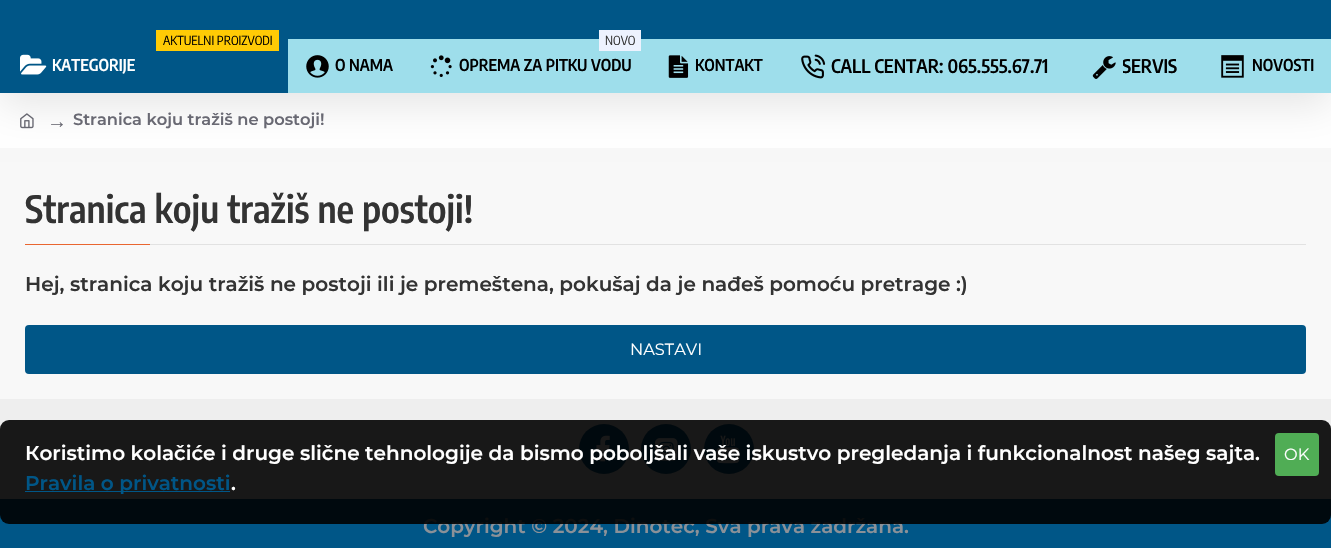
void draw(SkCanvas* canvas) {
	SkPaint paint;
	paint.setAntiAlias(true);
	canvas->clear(0xfff8f8f8);
	paint.setColor(0xffffffff);
	canvas->drawRect(SkRect::MakeXYWH(0, 93, 1331, 55), paint);
	canvas->drawImageRect(SkImages::DeferredFromEncodedData(SkData::MakeFromFileName("img8.png")), SkRect::MakeXYWH(20, 113, 14, 16), SkSamplingOptions());
	paint.setColor(0x1a000000);
	paint.setMaskFilter(SkMaskFilter::MakeBlur(kNormal_SkBlurStyle, 19));
	canvas->drawRect(SkRect::MakeXYWH(0, -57, 1331, 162), paint);
	paint.setMaskFilter(nullptr);
	paint.setColor(0xff005687);
	canvas->drawRect(SkRect::MakeXYWH(0, 0, 1331, 39), paint);
	canvas->drawRect(SkRect::MakeXYWH(0, 39, 288, 54), paint);
	paint.setColor(0xffffcb05);
	canvas->drawRect(SkRect::MakeXYWH(156, 30, 123, 21), paint);
	SkFont f1(fontMgr->matchFamilyStyle("Encode Sans Condensed", SkFontStyle::Normal()), 12.5);
	f1.setSubpixel(true);
	paint.setColor(0xff000000);
	canvas->drawString("AKTUELNI PROIZVODI", 163, 45, f1, paint);
	canvas->drawImageRect(SkImages::DeferredFromEncodedData(SkData::MakeFromFileName("img1.png")), SkRect::MakeXYWH(20, 54, 27, 21), SkSamplingOptions());
	SkFont f2(fontMgr->matchFamilyStyle("Encode Sans Condensed", SkFontStyle(600, SkFontStyle::kNormal_Width, SkFontStyle::kUpright_Slant)), 16.25);
	f2.setSubpixel(true);
	paint.setColor(0xffffffff);
	canvas->drawString("KATEGORIJE", 52, 71, f2, paint);
	paint.setColor(0xff9edeeb);
	canvas->drawRect(SkRect::MakeXYWH(288, 39, 1043, 54), paint);
	canvas->drawImageRect(SkImages::DeferredFromEncodedData(SkData::MakeFromFileName("img2.png")), SkRect::MakeXYWH(306, 55, 23, 23), SkSamplingOptions());
	paint.setColor(0xff000000);
	canvas->drawString("O NAMA", 335, 71, f2, paint);
	paint.setColor(0xffedf2fe);
	canvas->drawRect(SkRect::MakeXYWH(599, 30, 42, 21), paint);
	paint.setColor(0xff333333);
	canvas->drawString("NOVO", 605, 45, f1, paint);
	canvas->drawImageRect(SkImages::DeferredFromEncodedData(SkData::MakeFromFileName("img3.png")), SkRect::MakeXYWH(430, 55, 22, 22), SkSamplingOptions());
	paint.setColor(0xff000000);
	canvas->drawString("OPREMA ZA PITKU VODU", 459, 71, f2, paint);
	canvas->drawImageRect(SkImages::DeferredFromEncodedData(SkData::MakeFromFileName("img4.png")), SkRect::MakeXYWH(668, 55, 21, 23), SkSamplingOptions());
	canvas->drawString("KONTAKT", 695, 71, f2, paint);
	canvas->drawImageRect(SkImages::DeferredFromEncodedData(SkData::MakeFromFileName("img5.png")), SkRect::MakeXYWH(801, 54, 25, 25), SkSamplingOptions());
	SkFont f3(fontMgr->matchFamilyStyle("Encode Sans Condensed", SkFontStyle(600, SkFontStyle::kNormal_Width, SkFontStyle::kUpright_Slant)), 18.75);
	f3.setSubpixel(true);
	canvas->drawString("CALL CENTAR: 065.555.67.71", 831, 73, f3, paint);
	canvas->drawImageRect(SkImages::DeferredFromEncodedData(SkData::MakeFromFileName("img6.png")), SkRect::MakeXYWH(1092, 56, 24, 23), SkSamplingOptions());
	canvas->save();
	canvas->clipRect(SkRect::MakeXYWH(1123, 51, 55, 29));
	canvas->drawString("SERVIS", 1122, 73, f3, paint);
	canvas->restore();
	canvas->drawImageRect(SkImages::DeferredFromEncodedData(SkData::MakeFromFileName("img7.png")), SkRect::MakeXYWH(1221, 55, 23, 23), SkSamplingOptions());
	canvas->drawString("NOVOSTI", 1252, 71, f2, paint);
	SkFont f4(fontMgr->matchFamilyStyle("Liberation Serif", SkFontStyle::Normal()), 20);
	f4.setSubpixel(true);
	paint.setColor(0xff696973);
	canvas->drawString("→", 47, 128, f4, paint);
	SkFont f5(fontMgr->matchFamilyStyle("Montserrat", SkFontStyle(600, SkFontStyle::kNormal_Width, SkFontStyle::kUpright_Slant)), 16.25);
	f5.setSubpixel(true);
	canvas->drawString("Stranica koju tražiš ne postoji!", 73, 125, f5, paint);
	paint.setColor(0xffe2e2e2);
	canvas->drawRect(SkRect::MakeXYWH(150, 244, 1156, 1), paint);
	SkFont f6(fontMgr->matchFamilyStyle("Encode Sans Condensed", SkFontStyle(600, SkFontStyle::kNormal_Width, SkFontStyle::kUpright_Slant)), 37.5);
	f6.setSubpixel(true);
	paint.setColor(0xff333333);
	canvas->drawString("Stranica koju tražiš ne postoji!", 25, 223, f6, paint);
	paint.setColor(0xffe96631);
	canvas->drawRect(SkRect::MakeXYWH(25, 244, 125, 1), paint);
	SkFont f7(fontMgr->matchFamilyStyle("Montserrat", SkFontStyle(600, SkFontStyle::kNormal_Width, SkFontStyle::kUpright_Slant)), 20);
	f7.setSubpixel(true);
	paint.setColor(0xff333333);
	canvas->drawString("Hej, stranica koju tražiš ne postoji ili je premeštena, pokušaj da je nađeš pomoću pretrage :)", 25, 291, f7, paint);
	paint.setColor(0xff005687);
	canvas->drawRoundRect(SkRect::MakeXYWH(25, 325, 1281, 49), 4, 4, paint);
	SkFont f8(fontMgr->matchFamilyStyle("Montserrat", SkFontStyle::Normal()), 16.25);
	f8.setSubpixel(true);
	paint.setColor(0xffffffff);
	canvas->drawString("NASTAVI", 630, 355, f8, paint);
	paint.setColor(0xffeeeeee);
	canvas->drawRect(SkRect::MakeXYWH(0, 399, 1331, 100), paint);
	paint.setColor(0xff005687);
	canvas->drawCircle(604, 449, 25, paint);
	canvas->drawImageRect(SkImages::DeferredFromEncodedData(SkData::MakeFromFileName("img9.png")), SkRect::MakeXYWH(596, 435, 14, 27), SkSamplingOptions());
	canvas->drawCircle(666, 449, 25, paint);
	canvas->drawImageRect(SkImages::DeferredFromEncodedData(SkData::MakeFromFileName("img10.png")), SkRect::MakeXYWH(655, 438, 23, 23), SkSamplingOptions());
	canvas->drawCircle(729, 449, 25, paint);
	canvas->drawImageRect(SkImages::DeferredFromEncodedData(SkData::MakeFromFileName("img11.png")), SkRect::MakeXYWH(716, 435, 24, 29), SkSamplingOptions());
	canvas->drawRect(SkRect::MakeXYWH(0, 499, 1331, 49), paint);
	paint.setColor(0xff8b9198);
	canvas->drawString("Copyright © 2024, Dinotec, Sva prava zadržana.", 423, 533, f7, paint);
	paint.setColor(0xe6000000);
	canvas->drawRoundRect(SkRect::MakeXYWH(0, 420, 1331, 104), 9, 9, paint);
	paint.setColor(0xffffffff);
	canvas->drawString("Кoristimo kolačiće i druge slične tehnologije da bismo poboljšali vaše iskustvo pregledanja i funkcionalnost našeg sajta.", 25, 460, f7, paint);
	paint.setColor(0xff005687);
	canvas->drawRect(SkRect::MakeXYWH(25, 491, 205, 1), paint);
	canvas->drawString("Pravila o privatnosti", 25, 490, f7, paint);
	paint.setColor(0xffffffff);
	canvas->drawString(".", 231, 490, f7, paint);
	paint.setColor(0xff50ad55);
	canvas->drawRoundRect(SkRect::MakeXYWH(1275, 433, 44, 43), 4, 4, paint);
	paint.setColor(0xffffffff);
	canvas->drawString("OK", 1284, 460, f8, paint);
}
